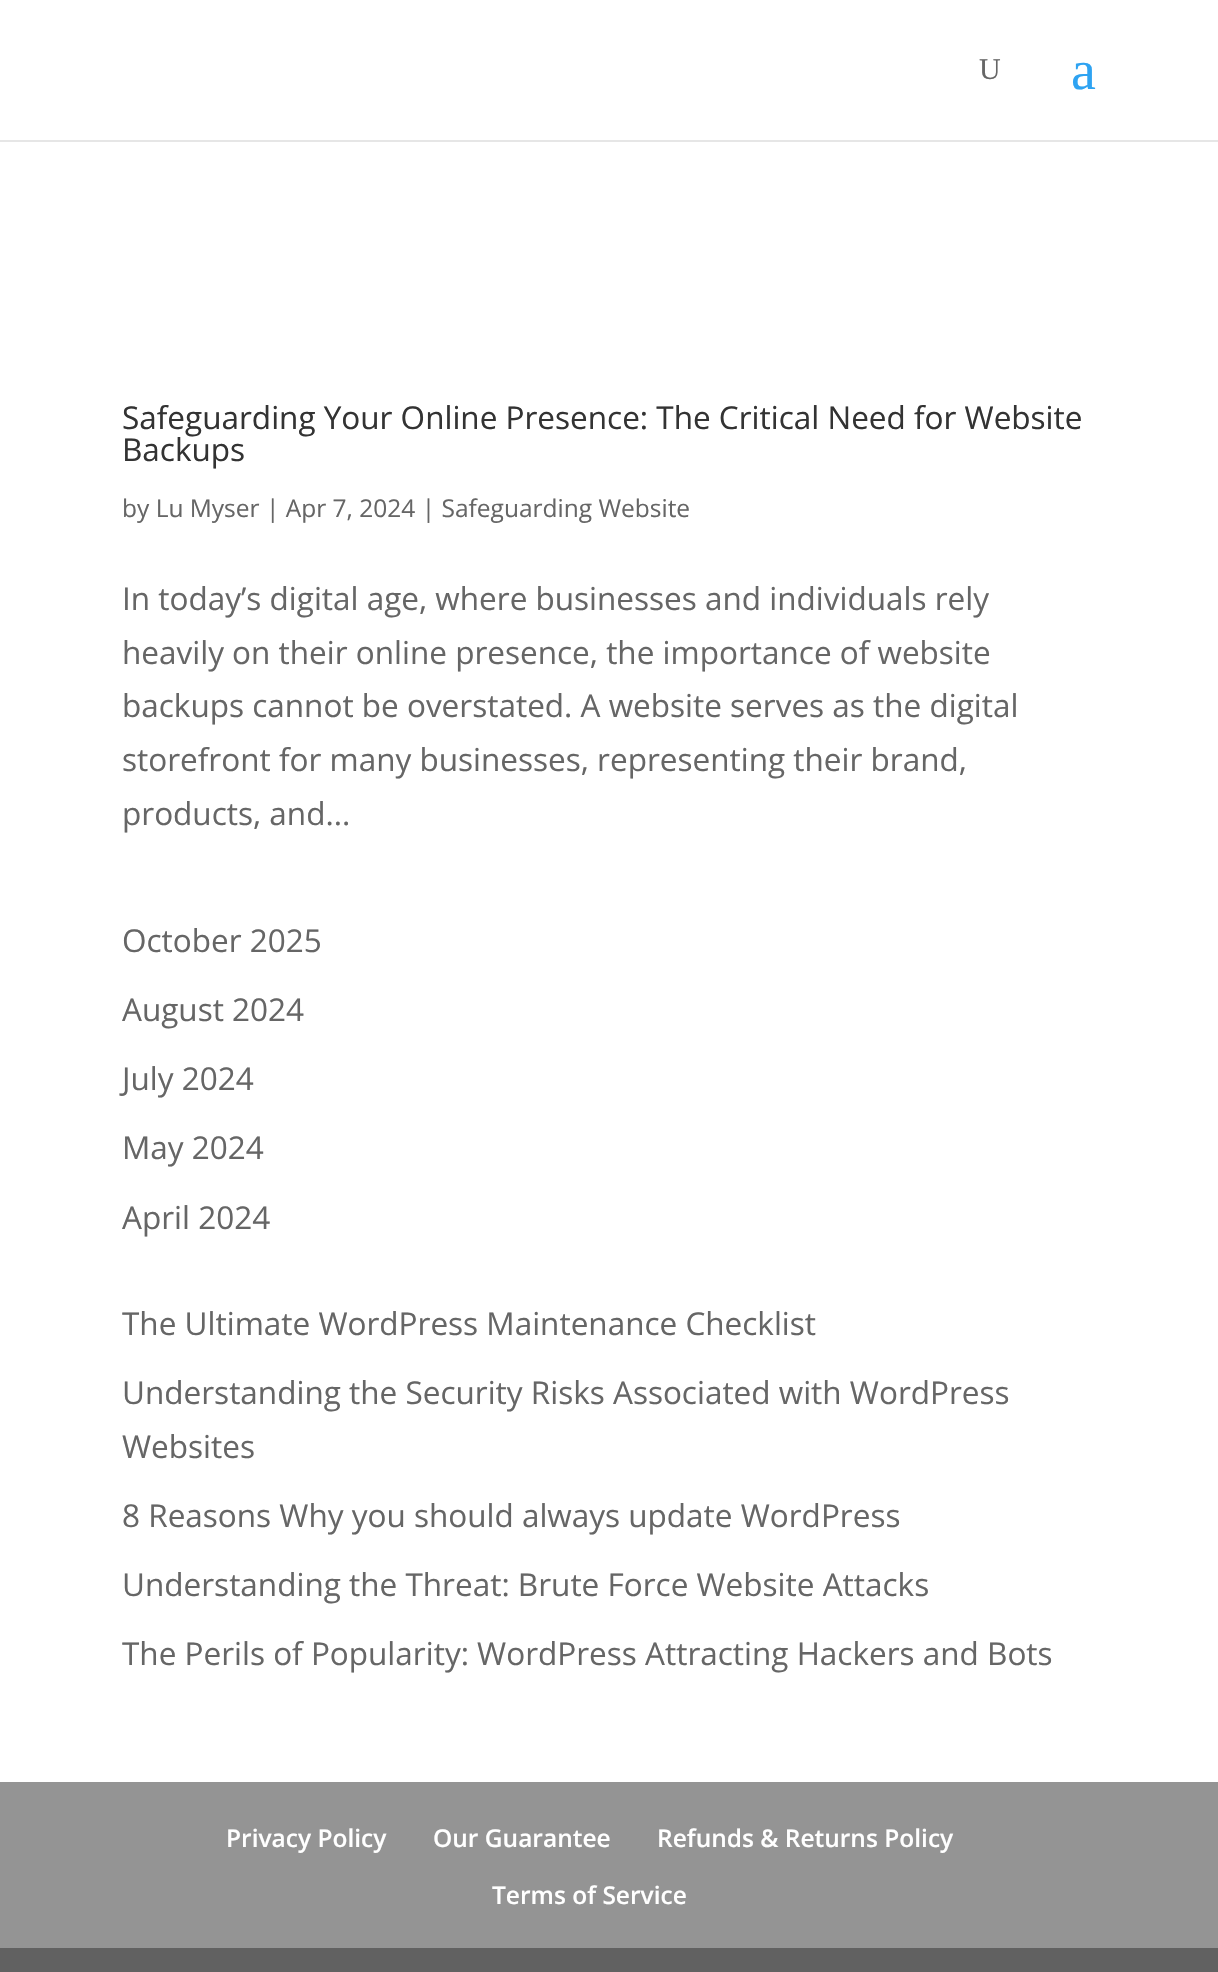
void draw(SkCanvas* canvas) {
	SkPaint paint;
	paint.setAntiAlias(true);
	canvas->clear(0xffffffff);
	paint.setColor(0xffe6e6e6);
	canvas->drawRect(SkRect::MakeXYWH(0, 140, 1218, 2), paint);
	SkFont f1(fontMgr->matchFamilyStyle("Liberation Serif", SkFontStyle::Normal()), 30);
	f1.setSubpixel(true);
	paint.setColor(0xff666666);
	canvas->drawString("U", 979, 79, f1, paint);
	SkFont f2(fontMgr->matchFamilyStyle("Liberation Serif", SkFontStyle::Normal()), 56);
	f2.setSubpixel(true);
	paint.setColor(0xff2ea3f2);
	canvas->drawString("a", 1071, 89, f2, paint);
	SkFont f3(fontMgr->matchFamilyStyle("Open Sans", SkFontStyle::Normal()), 31.5);
	f3.setSubpixel(true);
	paint.setColor(0xff333333);
	canvas->drawString("Safeguarding Your Online Presence: The Critical Need for Website", 122, 429, f3, paint);
	canvas->drawString("Backups", 122, 461, f3, paint);
	SkFont f4(fontMgr->matchFamilyStyle("Open Sans", SkFontStyle::Normal()), 24.5);
	f4.setSubpixel(true);
	paint.setColor(0xff666666);
	canvas->drawString("by Lu Myser | Apr 7, 2024 | Safeguarding Website", 122, 517, f4, paint);
	canvas->drawString("In today’s digital age, where businesses and individuals rely", 122, 610, f3, paint);
	canvas->drawString("heavily on their online presence, the importance of website", 122, 664, f3, paint);
	canvas->drawString("backups cannot be overstated. A website serves as the digital", 122, 717, f3, paint);
	canvas->drawString("storefront for many businesses, representing their brand,", 122, 771, f3, paint);
	canvas->drawString("products, and...", 122, 825, f3, paint);
	canvas->drawString("October 2025", 122, 952, f3, paint);
	canvas->drawString("August 2024", 122, 1021, f3, paint);
	canvas->drawString("July 2024", 122, 1090, f3, paint);
	canvas->drawString("May 2024", 122, 1159, f3, paint);
	canvas->drawString("April 2024", 122, 1229, f3, paint);
	canvas->drawString("The Ultimate WordPress Maintenance Checklist", 122, 1335, f3, paint);
	canvas->drawString("Understanding the Security Risks Associated with WordPress", 122, 1404, f3, paint);
	canvas->drawString("Websites", 122, 1458, f3, paint);
	canvas->drawString("8 Reasons Why you should always update WordPress", 122, 1527, f3, paint);
	canvas->drawString("Understanding the Threat: Brute Force Website Attacks", 122, 1596, f3, paint);
	canvas->drawString("The Perils of Popularity: WordPress Attracting Hackers and Bots", 122, 1665, f3, paint);
	paint.setColor(0xff949494);
	canvas->drawRect(SkRect::MakeXYWH(0, 1782, 1218, 166), paint);
	SkFont f5(fontMgr->matchFamilyStyle("Open Sans", SkFontStyle(600, SkFontStyle::kNormal_Width, SkFontStyle::kUpright_Slant)), 24.5);
	f5.setSubpixel(true);
	paint.setColor(0xffffffff);
	canvas->drawString("Privacy Policy", 226, 1847, f5, paint);
	canvas->drawString("Our Guarantee", 433, 1847, f5, paint);
	canvas->drawString("Refunds & Returns Policy", 657, 1847, f5, paint);
	canvas->drawString("Terms of Service", 492, 1904, f5, paint);
	paint.setColor(0xff616161);
	canvas->drawRect(SkRect::MakeXYWH(0, 1948, 1218, 24), paint);
}
